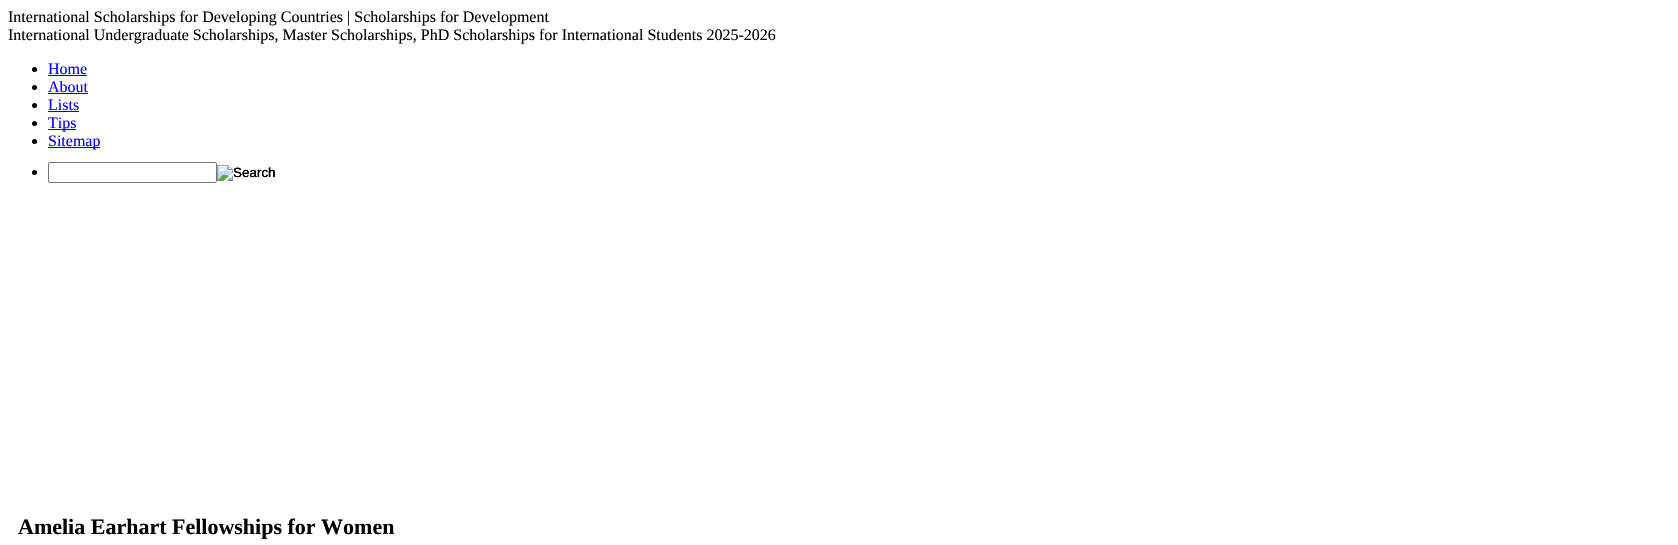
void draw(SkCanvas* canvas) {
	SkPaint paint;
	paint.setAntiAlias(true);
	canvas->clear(0xffffffff);
	SkFont f1(fontMgr->matchFamilyStyle("Liberation Serif", SkFontStyle::Normal()), 16);
	f1.setSubpixel(true);
	paint.setColor(0xff000000);
	canvas->drawString("International Scholarships for Developing Countries | Scholarships for Development", 8, 22, f1, paint);
	canvas->drawString("International Undergraduate Scholarships, Master Scholarships, PhD Scholarships for International Students 2025-2026", 8, 40, f1, paint);
	canvas->drawCircle(34.5, 69.5, 2.5, paint);
	paint.setColor(0xff0000ee);
	canvas->drawString("Home", 48, 74, f1, paint);
	canvas->drawRect(SkRect::MakeXYWH(48, 75, 39, 1), paint);
	paint.setColor(0xff000000);
	canvas->drawCircle(34.5, 87.5, 2.5, paint);
	paint.setColor(0xff0000ee);
	canvas->drawString("About", 48, 92, f1, paint);
	canvas->drawRect(SkRect::MakeXYWH(48, 93, 40, 1), paint);
	paint.setColor(0xff000000);
	canvas->drawCircle(34.5, 105.5, 2.5, paint);
	paint.setColor(0xff0000ee);
	canvas->drawString("Lists", 48, 110, f1, paint);
	canvas->drawRect(SkRect::MakeXYWH(48, 111, 31, 1), paint);
	paint.setColor(0xff000000);
	canvas->drawCircle(34.5, 123.5, 2.5, paint);
	paint.setColor(0xff0000ee);
	canvas->drawRect(SkRect::MakeXYWH(48, 129, 28, 1), paint);
	canvas->drawString("Tips", 48, 128, f1, paint);
	paint.setColor(0xff000000);
	canvas->drawCircle(34.5, 141.5, 2.5, paint);
	paint.setColor(0xff0000ee);
	canvas->drawRect(SkRect::MakeXYWH(48, 147, 52, 1), paint);
	canvas->drawString("Sitemap", 48, 146, f1, paint);
	paint.setColor(0xff000000);
	canvas->drawCircle(34.5, 172.5, 2.5, paint);
	paint.setStroke(true);
	paint.setStrokeWidth(1);
	paint.setColor(0xff767676);
	canvas->drawRoundRect(SkRect::MakeXYWH(48.5, 162.5, 168, 20), 1.5, 1.5, paint);
	canvas->drawImageRect(SkImages::DeferredFromEncodedData(SkData::MakeFromFileName("img1.png")), SkRect::MakeXYWH(217, 165, 58, 16), SkSamplingOptions());
	SkFont f2(fontMgr->matchFamilyStyle("Liberation Sans", SkFontStyle::Normal()), 13.5);
	f2.setSubpixel(true);
	paint.setStroke(false);
	paint.setColor(0xff000000);
	canvas->drawString("Search", 233, 177, f2, paint);
	SkFont f3(fontMgr->matchFamilyStyle("Liberation Serif", SkFontStyle::Bold()), 22);
	f3.setSubpixel(true);
	canvas->drawString("Amelia Earhart Fellowships for Women", 18, 534, f3, paint);
}
